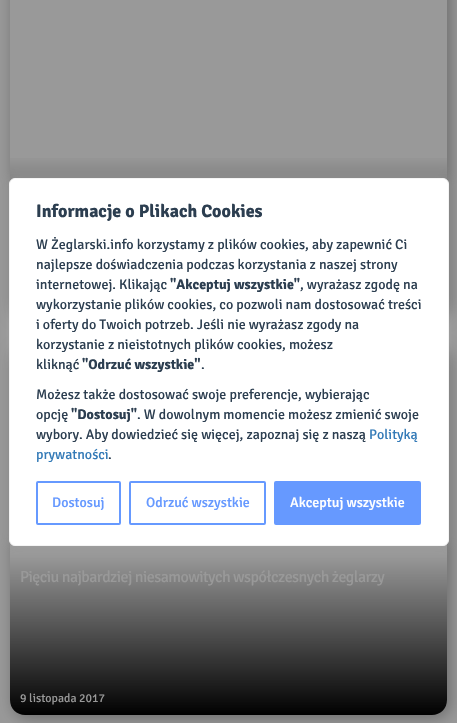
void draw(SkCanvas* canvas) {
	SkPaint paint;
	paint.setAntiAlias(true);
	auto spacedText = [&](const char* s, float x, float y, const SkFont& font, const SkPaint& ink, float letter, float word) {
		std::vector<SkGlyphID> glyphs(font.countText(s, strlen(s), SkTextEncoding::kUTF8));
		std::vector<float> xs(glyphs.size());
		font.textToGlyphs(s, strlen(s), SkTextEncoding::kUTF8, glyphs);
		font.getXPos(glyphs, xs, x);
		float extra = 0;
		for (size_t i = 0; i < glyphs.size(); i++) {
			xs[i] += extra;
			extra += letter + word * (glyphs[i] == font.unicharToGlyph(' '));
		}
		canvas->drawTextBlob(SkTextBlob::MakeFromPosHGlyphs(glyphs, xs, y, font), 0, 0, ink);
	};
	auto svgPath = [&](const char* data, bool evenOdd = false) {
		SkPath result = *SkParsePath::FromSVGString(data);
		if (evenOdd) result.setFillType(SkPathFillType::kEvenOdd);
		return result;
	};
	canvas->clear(0xff999999);
	paint.setColor(0x4d000000);
	paint.setMaskFilter(SkMaskFilter::MakeBlur(kNormal_SkBlurStyle, 7.5));
	canvas->drawRoundRect(SkRect::MakeXYWH(13, -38, 437, 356), 15, 15, paint);
	paint.setMaskFilter(nullptr);
	paint.setColor(0xff999999);
	canvas->drawRect(SkRect::MakeXYWH(10, 0, 437, 181), paint);
	{
		const SkColor colors[] = {0x00000000, 0xff000000};
		const float stops[] = {0, 1};
		const SkPoint ends[] = {{229, 155}, {229, 315}};
		paint.setShader(SkGradientShader::MakeLinear(ends, colors, stops, 2, SkTileMode::kClamp));
		paint.setAlpha(255);
	}
	canvas->drawRect(SkRect::MakeXYWH(10, 158, 437, 23), paint);
	paint.setShader(nullptr);
	paint.setColor(0x4d000000);
	paint.setMaskFilter(SkMaskFilter::MakeBlur(kNormal_SkBlurStyle, 7.5));
	canvas->drawRoundRect(SkRect::MakeXYWH(13, 348, 437, 370), 15, 15, paint);
	paint.setMaskFilter(nullptr);
	paint.setColor(0xff999999);
	canvas->drawRoundRect(SkRect::MakeXYWH(10, 345, 437, 370), 15, 15, paint);
	{
		const SkColor colors[] = {0x00000000, 0xff000000};
		const float stops[] = {0, 1};
		const SkPoint ends[] = {{229, 555}, {229, 715}};
		paint.setShader(SkGradientShader::MakeLinear(ends, colors, stops, 2, SkTileMode::kClamp));
		paint.setAlpha(255);
	}
	canvas->drawPath(svgPath("M10 555H447V700C447 708.5 440.5 715 432 715H25C16.5 715 10 708.5 10 700Z"), paint);
	paint.setShader(nullptr);
	paint.setColor(0x4dacabab);
	paint.setMaskFilter(SkMaskFilter::MakeBlur(kNormal_SkBlurStyle, 5));
	canvas->drawRoundRect(SkRect::MakeXYWH(9, 177, 440, 368), 6, 6, paint);
	paint.setMaskFilter(nullptr);
	paint.setColor(0xffffffff);
	canvas->drawRoundRect(SkRect::MakeXYWH(9.5, 178.5, 439, 367), 5.5, 5.5, paint);
	paint.setStroke(true);
	paint.setStrokeWidth(1);
	paint.setColor(0xfff4f4f4);
	canvas->drawRoundRect(SkRect::MakeXYWH(9.5, 178.5, 439, 367), 5.5, 5.5, paint);
	SkFont f1(fontMgr->matchFamilyStyle("Signika", SkFontStyle::Bold()), 18);
	f1.setSubpixel(true);
	paint.setStroke(false);
	paint.setColor(0xff2c3e50);
	canvas->drawString("Informacje o Plikach Cookies", 36, 217, f1, paint);
	SkFont f2(fontMgr->matchFamilyStyle("Signika", SkFontStyle::Normal()), 14);
	f2.setSubpixel(true);
	canvas->drawString("W Żeglarski.info korzystamy z plików cookies, aby zapewnić Ci", 36, 249, f2, paint);
	canvas->drawString("najlepsze doświadczenia podczas korzystania z naszej strony", 36, 269, f2, paint);
	canvas->drawString("internetowej. Klikając", 36, 289, f2, paint);
	SkFont f3(fontMgr->matchFamilyStyle("Signika", SkFontStyle::Bold()), 14);
	f3.setSubpixel(true);
	canvas->drawString("\"Akceptuj wszystkie\"", 170, 289, f3, paint);
	canvas->drawString(", wyrażasz zgodę na", 300, 289, f2, paint);
	canvas->drawString("wykorzystanie plików cookies, co pozwoli nam dostosować treści", 36, 309, f2, paint);
	canvas->drawString("i oferty do Twoich potrzeb. Jeśli nie wyrażasz zgody na", 36, 329, f2, paint);
	canvas->drawString("korzystanie z nieistotnych plików cookies, możesz", 36, 349, f2, paint);
	canvas->drawString("kliknąć", 36, 369, f2, paint);
	canvas->drawString("\"Odrzuć wszystkie\"", 82, 369, f3, paint);
	canvas->drawString(".", 201, 369, f2, paint);
	canvas->drawString("Możesz także dostosować swoje preferencje, wybierając", 36, 399, f2, paint);
	canvas->drawString("opcję", 36, 419, f2, paint);
	canvas->drawString("\"Dostosuj\"", 71, 419, f3, paint);
	canvas->drawString(". W dowolnym momencie możesz zmienić swoje", 137, 419, f2, paint);
	canvas->drawString("wybory. Aby dowiedzieć się więcej, zapoznaj się z naszą", 36, 439, f2, paint);
	paint.setColor(0xff337ab7);
	canvas->drawString("Polityką", 369, 439, f2, paint);
	canvas->drawString("prywatności", 36, 459, f2, paint);
	paint.setColor(0xff2c3e50);
	canvas->drawString(".", 108, 459, f2, paint);
	paint.setStroke(true);
	paint.setStrokeWidth(2);
	paint.setColor(0xff6699ff);
	canvas->drawRoundRect(SkRect::MakeXYWH(37, 482, 83, 42), 1, 1, paint);
	SkFont f4(fontMgr->matchFamilyStyle("Signika", SkFontStyle(500, SkFontStyle::kNormal_Width, SkFontStyle::kUpright_Slant)), 14);
	f4.setSubpixel(true);
	paint.setStroke(false);
	canvas->drawString("Dostosuj", 52, 507, f4, paint);
	paint.setStroke(true);
	canvas->drawRoundRect(SkRect::MakeXYWH(130, 482, 135, 42), 1, 1, paint);
	paint.setStroke(false);
	canvas->drawString("Odrzuć wszystkie", 146, 507, f4, paint);
	canvas->drawRoundRect(SkRect::MakeXYWH(275, 482, 145, 42), 1, 1, paint);
	paint.setStroke(true);
	canvas->drawRoundRect(SkRect::MakeXYWH(275, 482, 145, 42), 1, 1, paint);
	paint.setStroke(false);
	paint.setColor(0xffffffff);
	canvas->drawString("Akceptuj wszystkie", 290, 507, f4, paint);
	SkFont f5(fontMgr->matchFamilyStyle("Signika", SkFontStyle::Normal()), 16);
	f5.setSubpixel(true);
	paint.setColor(0xff999999);
	spacedText("Pięciu najbardziej niesamowitych współczesnych żeglarzy", 20, 582, f5, paint, -0.55, 0);
	SkFont f6(fontMgr->matchFamilyStyle("Signika", SkFontStyle::Normal()), 12);
	f6.setSubpixel(true);
	canvas->drawString("9 listopada 2017", 20, 702, f6, paint);
}
